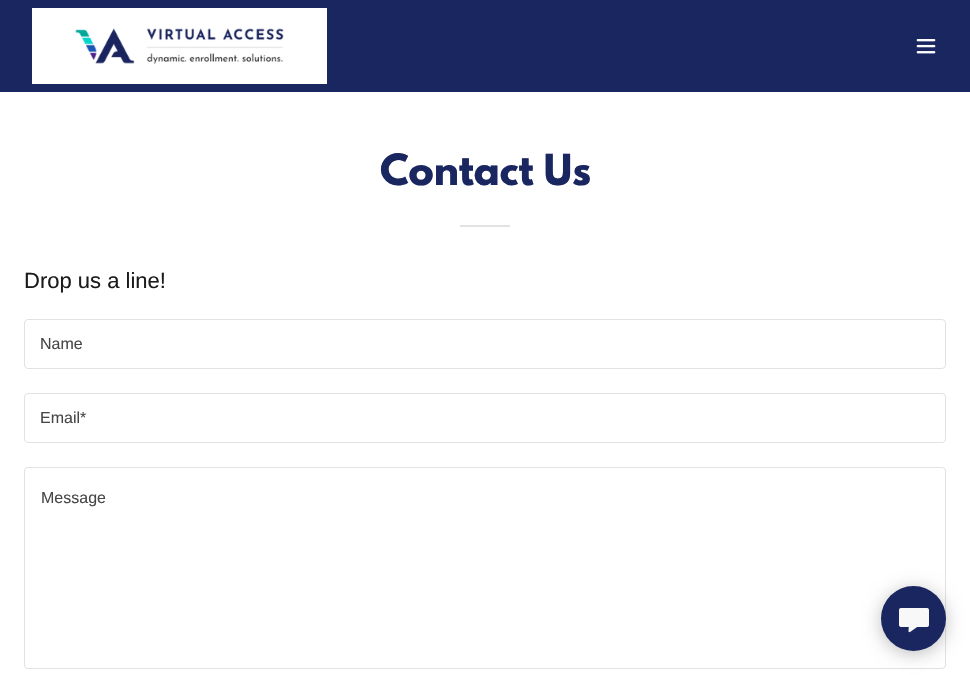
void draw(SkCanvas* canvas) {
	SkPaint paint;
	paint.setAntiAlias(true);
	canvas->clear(0xff1a2660);
	paint.setColor(0xffffffff);
	canvas->drawRect(SkRect::MakeXYWH(32, 8, 295, 76), paint);
	canvas->drawImageRect(SkImages::DeferredFromEncodedData(SkData::MakeFromFileName("img1.png")), SkRect::MakeXYWH(75, 28, 209, 36), SkSamplingOptions());
	canvas->drawImageRect(SkImages::DeferredFromEncodedData(SkData::MakeFromFileName("img2.png")), SkRect::MakeXYWH(916, 39, 20, 15), SkSamplingOptions());
	canvas->drawRect(SkRect::MakeXYWH(0, 92, 970, 583), paint);
	SkFont f1(fontMgr->matchFamilyStyle("League Spartan", SkFontStyle::Bold()), 38);
	f1.setSubpixel(true);
	paint.setColor(0xff1a2660);
	canvas->drawString("Contact Us", 380, 185, f1, paint);
	paint.setColor(0xffe2e2e2);
	canvas->drawRect(SkRect::MakeXYWH(460, 225, 50, 2), paint);
	SkFont f2(fontMgr->matchFamilyStyle("Liberation Sans", SkFontStyle::Normal()), 22);
	f2.setSubpixel(true);
	paint.setColor(0xff1b1b1b);
	canvas->drawString("Drop us a line!", 24, 288, f2, paint);
	paint.setStroke(true);
	paint.setStrokeWidth(1);
	paint.setColor(0xffe2e2e2);
	canvas->drawRoundRect(SkRect::MakeXYWH(24.5, 319.5, 921, 49), 3.5, 3.5, paint);
	SkFont f3(fontMgr->matchFamilyStyle("Liberation Sans", SkFontStyle::Normal()), 16);
	f3.setSubpixel(true);
	paint.setStroke(false);
	paint.setColor(0xff474747);
	canvas->drawString("Name", 40, 349, f3, paint);
	paint.setStroke(true);
	paint.setColor(0xffe2e2e2);
	canvas->drawRoundRect(SkRect::MakeXYWH(24.5, 393.5, 921, 49), 3.5, 3.5, paint);
	paint.setStroke(false);
	paint.setColor(0xff474747);
	canvas->drawString("Email*", 40, 423, f3, paint);
	paint.setStroke(true);
	paint.setColor(0xffe2e2e2);
	canvas->drawRoundRect(SkRect::MakeXYWH(24.5, 467.5, 921, 201), 3.5, 3.5, paint);
	paint.setStroke(false);
	paint.setColor(0xff474747);
	canvas->drawString("Message", 41, 503, f3, paint);
	paint.setColor(0x40000000);
	paint.setMaskFilter(SkMaskFilter::MakeBlur(kNormal_SkBlurStyle, 9));
	canvas->drawRoundRect(SkRect::MakeXYWH(881, 589, 65, 65), 32.5, 32.5, paint);
	paint.setMaskFilter(nullptr);
	paint.setColor(0xff1a2660);
	canvas->drawCircle(913.5, 618.5, 32.5, paint);
	canvas->drawImageRect(SkImages::DeferredFromEncodedData(SkData::MakeFromFileName("img3.png")), SkRect::MakeXYWH(899, 608, 30, 25), SkSamplingOptions());
}
